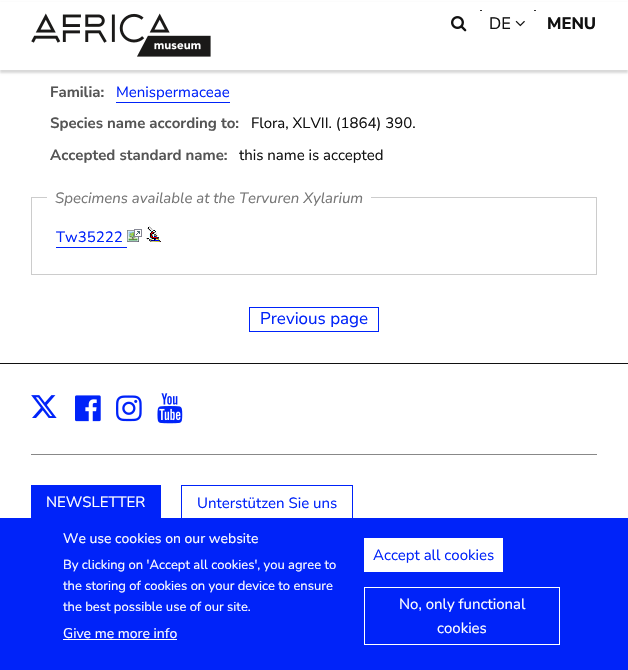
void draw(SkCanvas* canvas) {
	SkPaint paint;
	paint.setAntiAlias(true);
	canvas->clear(0xffffffff);
	paint.setColor(0x26000000);
	paint.setMaskFilter(SkMaskFilter::MakeBlur(kNormal_SkBlurStyle, 1));
	canvas->drawRect(SkRect::MakeXYWH(0, 3, 628, 70), paint);
	paint.setMaskFilter(nullptr);
	paint.setColor(0xffffffff);
	canvas->drawRect(SkRect::MakeXYWH(0, 2, 628, 68), paint);
	canvas->drawImageRect(SkImages::DeferredFromEncodedData(SkData::MakeFromFileName("img1.png")), SkRect::MakeXYWH(31, 13, 180, 44), SkSamplingOptions());
	paint.setColor(0xff333333);
	canvas->drawRect(SkRect::MakeXYWH(480, 10, 2, 1), paint);
	canvas->drawImageRect(SkImages::DeferredFromEncodedData(SkData::MakeFromFileName("img2.png")), SkRect::MakeXYWH(451, 16, 16, 16), SkSamplingOptions());
	canvas->drawRect(SkRect::MakeXYWH(534, 10, 2, 1), paint);
	SkFont f1(fontMgr->matchFamilyStyle("Nunito Sans", SkFontStyle::Normal()), 16.5);
	f1.setSubpixel(true);
	paint.setColor(0xff111111);
	canvas->drawString("DE", 489, 29, f1, paint);
	canvas->drawImageRect(SkImages::DeferredFromEncodedData(SkData::MakeFromFileName("img3.png")), SkRect::MakeXYWH(515, 20, 10, 7), SkSamplingOptions());
	SkFont f2(fontMgr->matchFamilyStyle("Nunito Sans", SkFontStyle(800, SkFontStyle::kNormal_Width, SkFontStyle::kUpright_Slant)), 16.5);
	f2.setSubpixel(true);
	canvas->drawString("MENU", 547, 29, f2, paint);
	SkFont f3(fontMgr->matchFamilyStyle("Nunito Sans", SkFontStyle::Bold()), 15);
	f3.setSubpixel(true);
	paint.setColor(0xff555555);
	canvas->drawString("Familia:", 50, 97, f3, paint);
	SkFont f4(fontMgr->matchFamilyStyle("Nunito Sans", SkFontStyle::Normal()), 15);
	f4.setSubpixel(true);
	paint.setColor(0xff0023f9);
	canvas->drawString("Menispermaceae", 116, 97, f4, paint);
	canvas->drawRect(SkRect::MakeXYWH(116, 102, 114, 1), paint);
	paint.setColor(0xff555555);
	canvas->drawString("Species name according to:", 50, 128, f3, paint);
	paint.setColor(0xff111111);
	canvas->drawString("Flora, XLVII. (1864) 390.", 251, 128, f4, paint);
	paint.setColor(0xff555555);
	canvas->drawString("Accepted standard name:", 50, 160, f3, paint);
	paint.setColor(0xff111111);
	canvas->drawString("this name is accepted", 239, 160, f4, paint);
	paint.setStroke(true);
	paint.setStrokeWidth(1);
	paint.setColor(0xffcccccc);
	canvas->drawRect(SkRect::MakeXYWH(31.5, 197.5, 565, 77), paint);
	paint.setStroke(false);
	paint.setColor(0xffffffff);
	canvas->drawRect(SkRect::MakeXYWH(47, 197, 324, 1), paint);
	SkFont f5(fontMgr->matchFamilyStyle("Nunito Sans", SkFontStyle::Italic()), 15);
	f5.setSubpixel(true);
	paint.setColor(0xff767676);
	canvas->drawString("Specimens available at the Tervuren Xylarium", 55, 203, f5, paint);
	paint.setColor(0xff0023f9);
	canvas->drawString("Tw35222", 56, 242, f4, paint);
	canvas->drawRect(SkRect::MakeXYWH(56, 247, 71, 1), paint);
	canvas->drawImageRect(SkImages::DeferredFromEncodedData(SkData::MakeFromFileName("img4.png")), SkRect::MakeXYWH(127, 229, 15, 13), SkSamplingOptions());
	canvas->drawImageRect(SkImages::DeferredFromEncodedData(SkData::MakeFromFileName("img5.png")), SkRect::MakeXYWH(146, 226, 15, 16), SkSamplingOptions());
	paint.setStroke(true);
	canvas->drawRect(SkRect::MakeXYWH(249.5, 307.5, 129, 24), paint);
	SkFont f6(fontMgr->matchFamilyStyle("Nunito Sans", SkFontStyle::Normal()), 17);
	f6.setSubpixel(true);
	paint.setStroke(false);
	canvas->drawString("Previous page", 260, 324, f6, paint);
	paint.setColor(0xff111111);
	canvas->drawRect(SkRect::MakeXYWH(0, 363, 628, 1), paint);
	paint.setColor(0xff888888);
	canvas->drawRect(SkRect::MakeXYWH(31, 454, 566, 1), paint);
	canvas->drawImageRect(SkImages::DeferredFromEncodedData(SkData::MakeFromFileName("img6.png")), SkRect::MakeXYWH(31, 395, 26, 23), SkSamplingOptions());
	canvas->drawImageRect(SkImages::DeferredFromEncodedData(SkData::MakeFromFileName("img7.png")), SkRect::MakeXYWH(75, 395, 26, 27), SkSamplingOptions());
	canvas->drawImageRect(SkImages::DeferredFromEncodedData(SkData::MakeFromFileName("img8.png")), SkRect::MakeXYWH(116, 395, 26, 27), SkSamplingOptions());
	canvas->drawImageRect(SkImages::DeferredFromEncodedData(SkData::MakeFromFileName("img9.png")), SkRect::MakeXYWH(157, 393, 26, 31), SkSamplingOptions());
	paint.setColor(0xff0023f9);
	canvas->drawRect(SkRect::MakeXYWH(31, 485, 130, 33), paint);
	paint.setColor(0xffffffff);
	canvas->drawString("NEWSLETTER", 46, 507, f4, paint);
	paint.setStroke(true);
	paint.setColor(0xff0023f9);
	canvas->drawRect(SkRect::MakeXYWH(181.5, 485.5, 171, 35), paint);
	paint.setStroke(false);
	canvas->drawString("Unterstützen Sie uns", 197, 508, f4, paint);
	canvas->drawRect(SkRect::MakeXYWH(0, 518, 628, 152), paint);
	SkFont f7(fontMgr->matchFamilyStyle("Nunito Sans", SkFontStyle::Normal()), 14);
	f7.setSubpixel(true);
	paint.setColor(0xffffffff);
	canvas->drawString("We use cookies on our website", 63, 543, f7, paint);
	SkFont f8(fontMgr->matchFamilyStyle("Nunito Sans", SkFontStyle::Normal()), 13);
	f8.setSubpixel(true);
	canvas->drawString("By clicking on 'Accept all cookies', you agree to", 63, 569, f8, paint);
	canvas->drawString("the storing of cookies on your device to ensure", 63, 590, f8, paint);
	canvas->drawString("the best possible use of our site.", 63, 611, f8, paint);
	canvas->drawString("Give me more info", 63, 638, f7, paint);
	canvas->drawRect(SkRect::MakeXYWH(63, 639, 114, 1), paint);
	canvas->drawRect(SkRect::MakeXYWH(364, 538, 139, 34), paint);
	paint.setColor(0xff0023f9);
	canvas->drawString("Accept all cookies", 373, 560, f4, paint);
	paint.setStroke(true);
	paint.setColor(0xffffffff);
	canvas->drawRect(SkRect::MakeXYWH(364.5, 587.5, 195, 57), paint);
	paint.setStroke(false);
	canvas->drawString("No, only functional", 399, 609, f4, paint);
	canvas->drawString("cookies", 437, 633, f4, paint);
}
